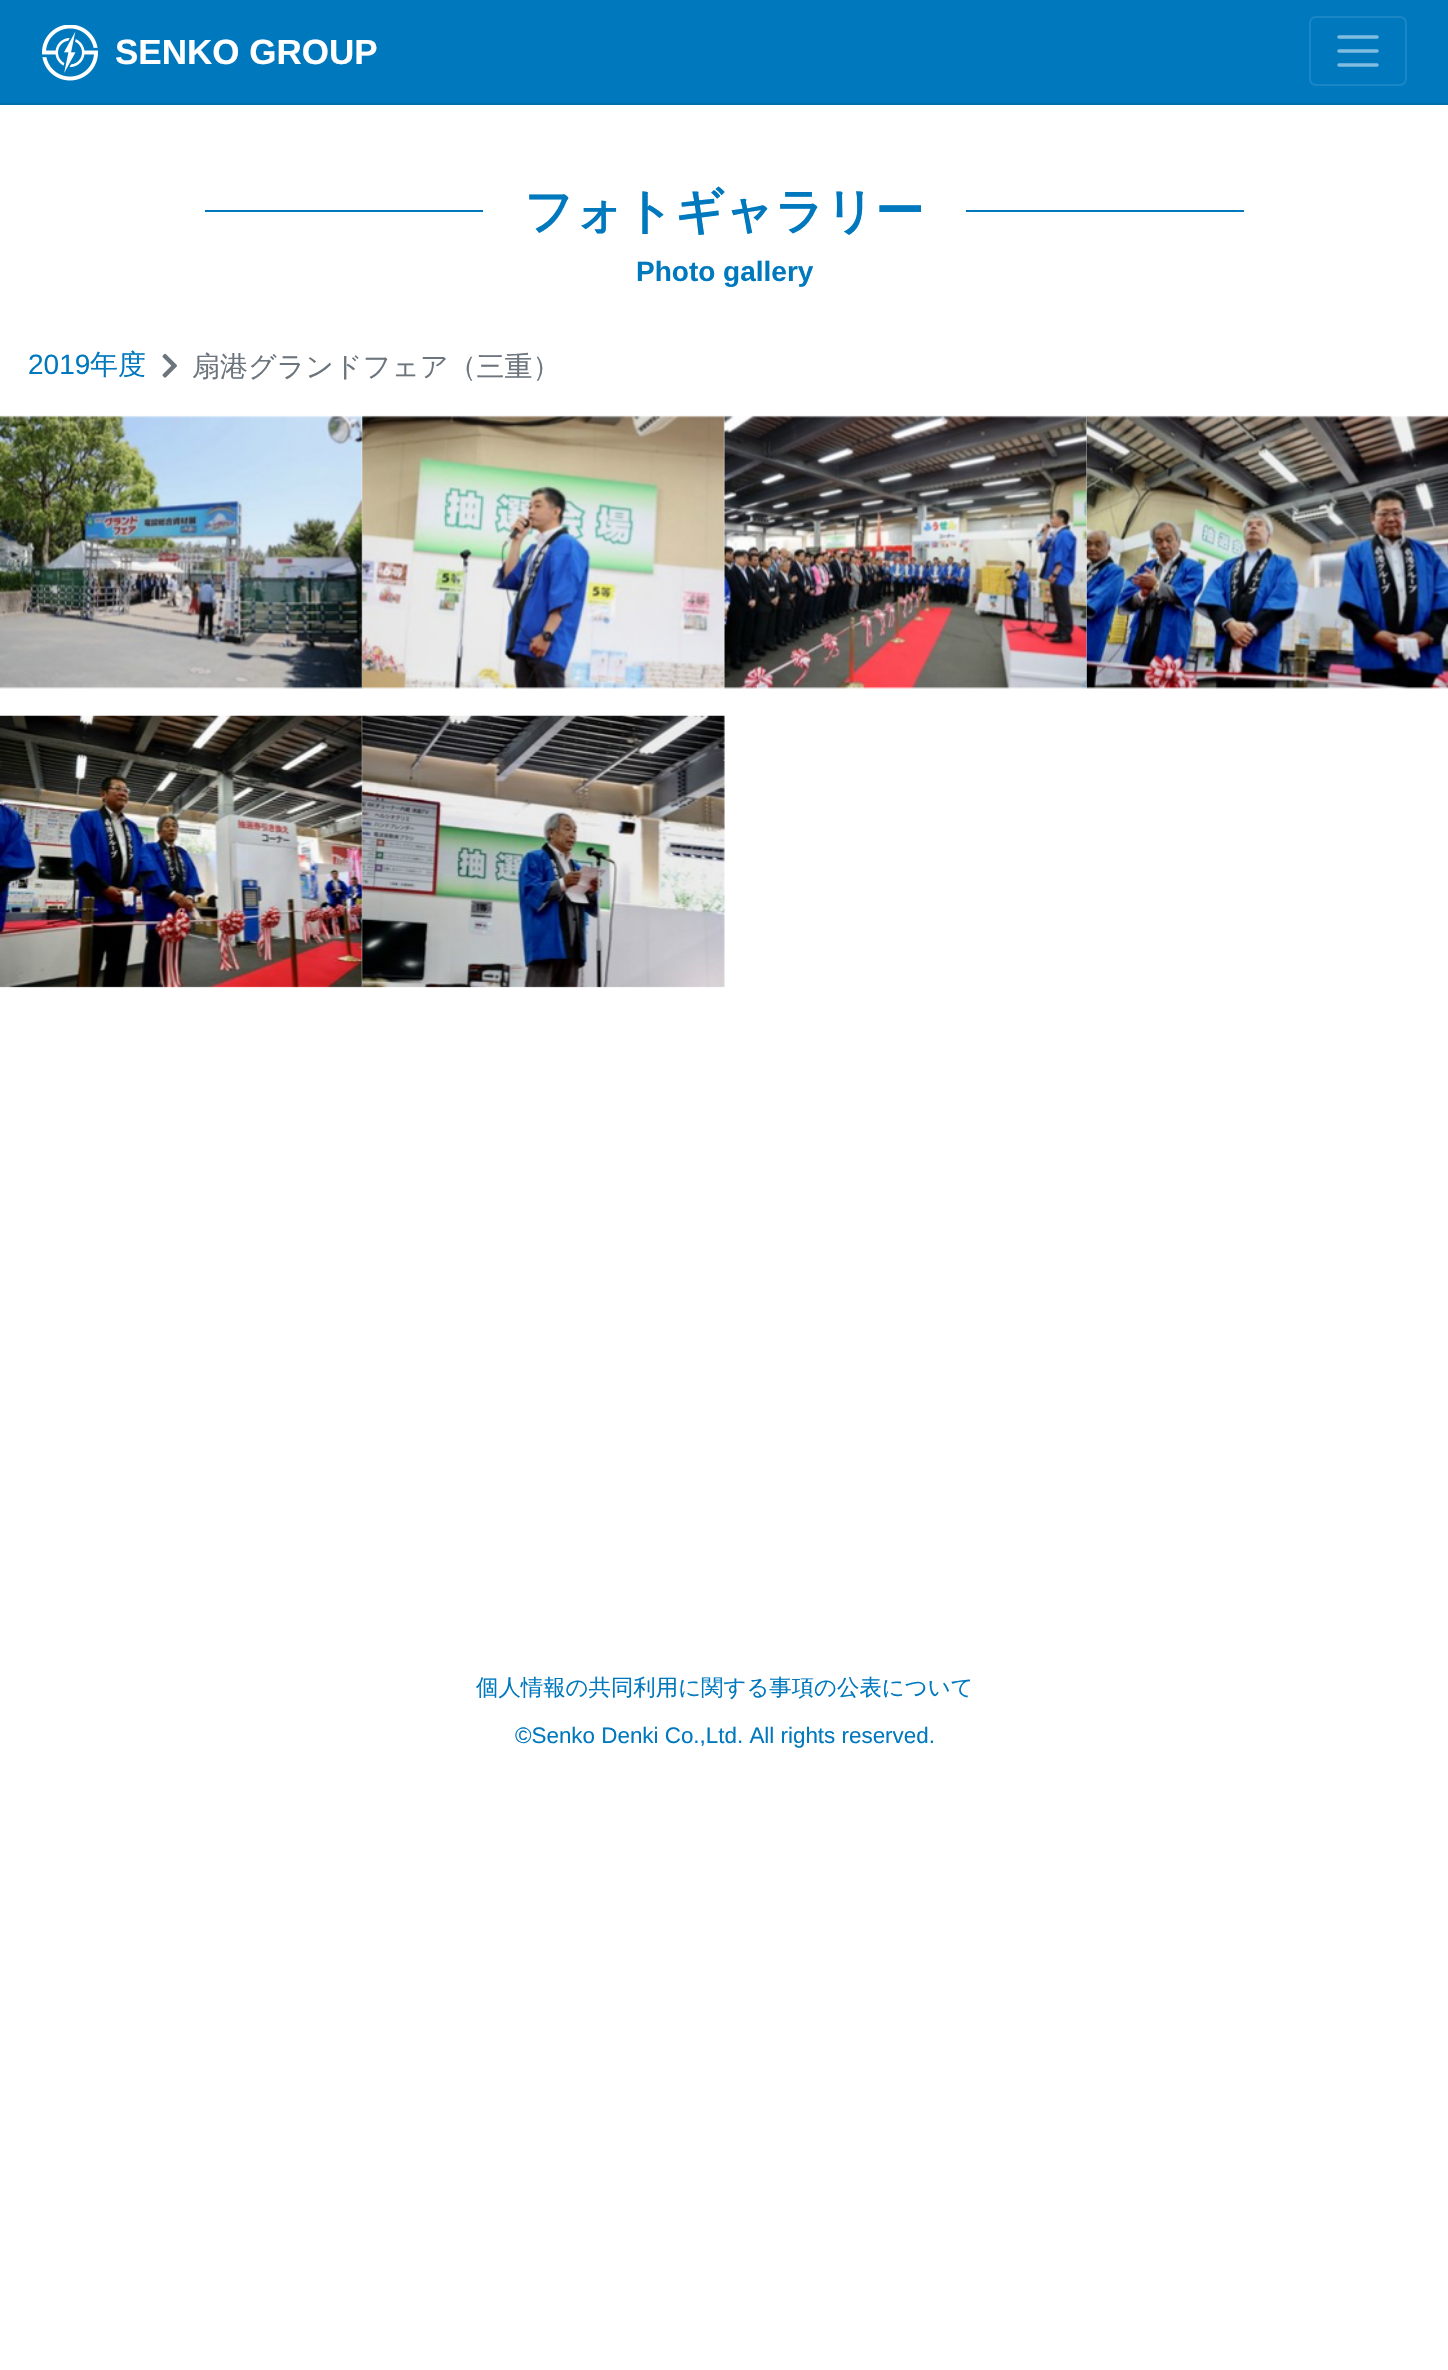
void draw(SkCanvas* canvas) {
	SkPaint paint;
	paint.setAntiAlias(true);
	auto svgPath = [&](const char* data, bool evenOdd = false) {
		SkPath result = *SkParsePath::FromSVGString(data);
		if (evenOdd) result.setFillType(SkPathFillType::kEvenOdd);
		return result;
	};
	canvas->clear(0xffffffff);
	paint.setColor(0xff0078be);
	canvas->drawRect(SkRect::MakeXYWH(0, 0, 1448, 103), paint);
	paint.setColor(0xff006cab);
	canvas->drawRect(SkRect::MakeXYWH(0, 103, 1448, 2), paint);
	canvas->drawImageRect(SkImages::DeferredFromEncodedData(SkData::MakeFromFileName("img1.png")), SkRect::MakeXYWH(42, 25, 56, 56), SkSamplingOptions());
	SkFont f1(fontMgr->matchFamilyStyle("Liberation Sans", SkFontStyle::Bold()), 35);
	f1.setSubpixel(true);
	paint.setColor(0xffffffff);
	canvas->drawString("SENKO GROUP", 115, 64, f1, paint);
	paint.setStroke(true);
	paint.setStrokeWidth(2);
	paint.setColor(0xff1a86c5);
	canvas->drawRoundRect(SkRect::MakeXYWH(1310, 17, 96, 68), 6, 6, paint);
	paint.setStrokeWidth(3.5);
	paint.setStrokeCap(SkPaint::kRound_Cap);
	paint.setColor(0xff80bcdf);
	canvas->drawPath(svgPath("M1339 37H1377M1339 51H1377M1339 65H1377"), paint);
	paint.setStroke(false);
	paint.setColor(0xff0078be);
	canvas->drawRect(SkRect::MakeXYWH(205, 210, 278, 2), paint);
	SkFont f2(fontMgr->matchFamilyStyle("WenQuanYi Zen Hei", SkFontStyle::Bold()), 49);
	f2.setSubpixel(true);
	canvas->drawString("フォトギャラリー", 524, 228, f2, paint);
	canvas->drawRect(SkRect::MakeXYWH(966, 210, 278, 2), paint);
	SkFont f3(fontMgr->matchFamilyStyle("Liberation Sans", SkFontStyle::Bold()), 28);
	f3.setSubpixel(true);
	canvas->drawString("Photo gallery", 636, 281, f3, paint);
	SkFont f4(fontMgr->matchFamilyStyle("Liberation Sans", SkFontStyle::Normal()), 28);
	f4.setSubpixel(true);
	canvas->drawString("2019", 28, 374, f4, paint);
	SkFont f5(fontMgr->matchFamilyStyle("WenQuanYi Zen Hei", SkFontStyle(500, SkFontStyle::kNormal_Width, SkFontStyle::kUpright_Slant)), 28);
	f5.setSubpixel(true);
	canvas->drawString("年度", 90, 374, f5, paint);
	canvas->drawImageRect(SkImages::DeferredFromEncodedData(SkData::MakeFromFileName("img2.png")), SkRect::MakeXYWH(162, 353, 15, 25), SkSamplingOptions());
	paint.setColor(0xff6c757d);
	canvas->drawString("扇港グランドフェア（三重）", 192, 376, f5, paint);
	canvas->drawImageRect(SkImages::DeferredFromEncodedData(SkData::MakeFromFileName("img3.png")), SkRect::MakeXYWH(0, 415, 363, 274), SkSamplingOptions());
	canvas->drawImageRect(SkImages::DeferredFromEncodedData(SkData::MakeFromFileName("img4.png")), SkRect::MakeXYWH(362, 415, 363, 274), SkSamplingOptions());
	canvas->drawImageRect(SkImages::DeferredFromEncodedData(SkData::MakeFromFileName("img5.png")), SkRect::MakeXYWH(724, 415, 363, 274), SkSamplingOptions());
	canvas->drawImageRect(SkImages::DeferredFromEncodedData(SkData::MakeFromFileName("img6.png")), SkRect::MakeXYWH(1086, 415, 362, 274), SkSamplingOptions());
	canvas->drawImageRect(SkImages::DeferredFromEncodedData(SkData::MakeFromFileName("img7.png")), SkRect::MakeXYWH(0, 715, 363, 273), SkSamplingOptions());
	canvas->drawImageRect(SkImages::DeferredFromEncodedData(SkData::MakeFromFileName("img8.png")), SkRect::MakeXYWH(362, 715, 363, 273), SkSamplingOptions());
	SkFont f6(fontMgr->matchFamilyStyle("WenQuanYi Zen Hei", SkFontStyle(500, SkFontStyle::kNormal_Width, SkFontStyle::kUpright_Slant)), 22.4);
	f6.setSubpixel(true);
	paint.setColor(0xff0078be);
	canvas->drawString("個人情報の共同利用に関する事項の公表について", 476, 1695, f6, paint);
	SkFont f7(fontMgr->matchFamilyStyle("Liberation Sans", SkFontStyle::Normal()), 22.4);
	f7.setSubpixel(true);
	canvas->drawString("©Senko Denki Co.,Ltd. All rights reserved.", 515, 1743, f7, paint);
}
